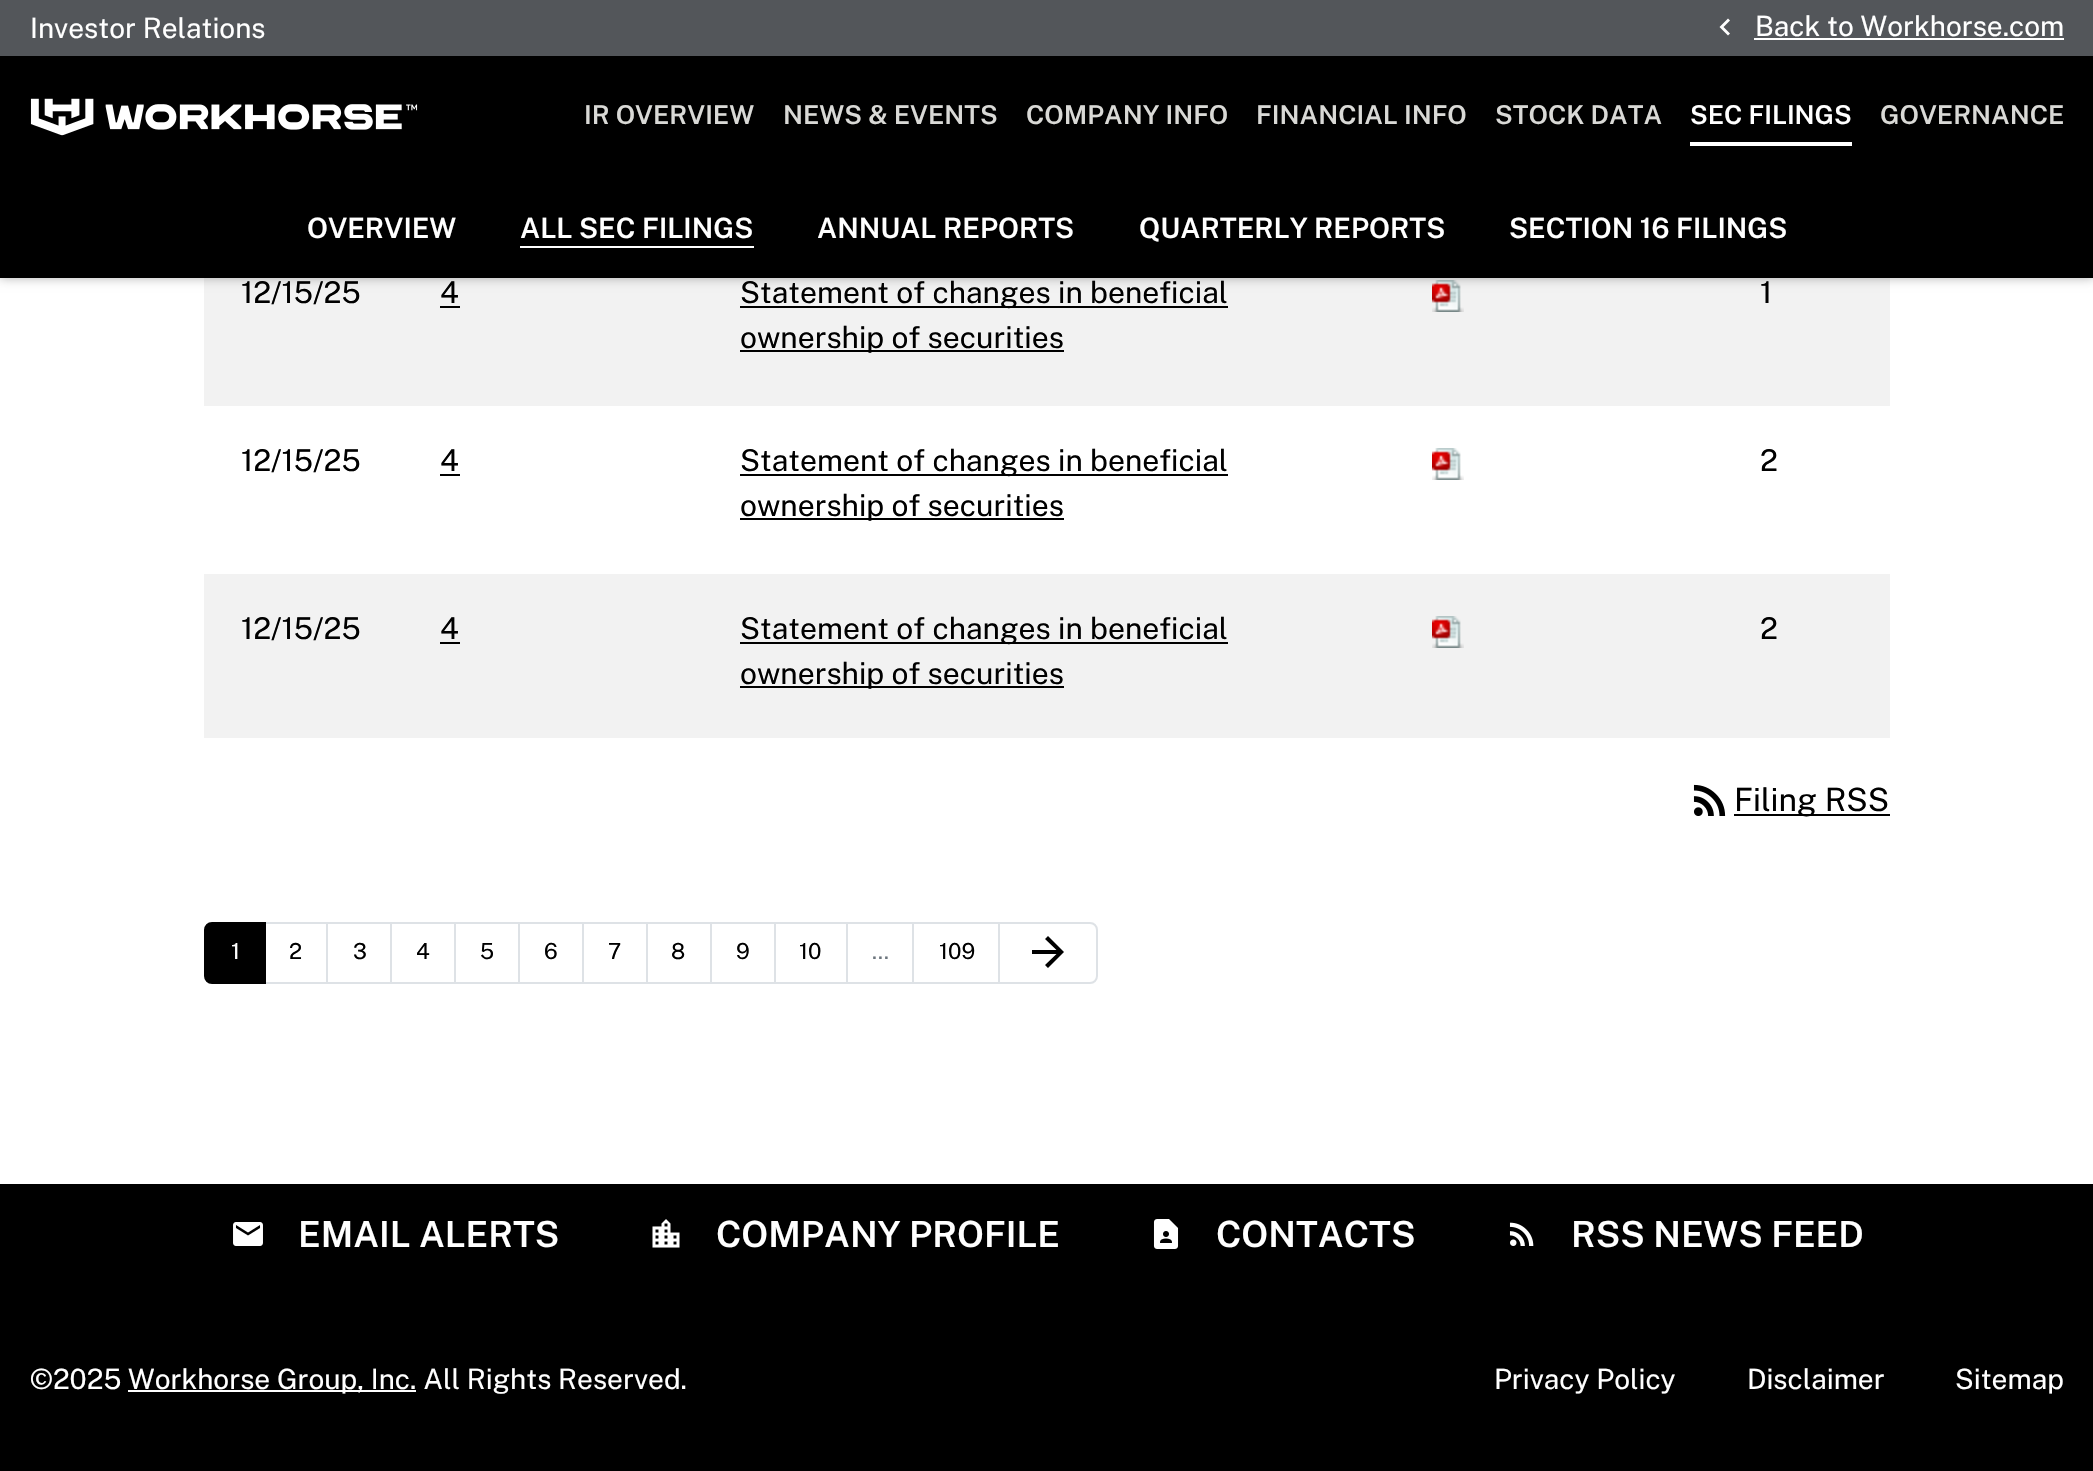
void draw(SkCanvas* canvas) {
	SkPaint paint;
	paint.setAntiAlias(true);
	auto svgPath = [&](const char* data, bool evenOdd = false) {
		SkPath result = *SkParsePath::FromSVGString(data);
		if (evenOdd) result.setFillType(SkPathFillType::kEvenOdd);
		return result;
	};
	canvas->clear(0xffffffff);
	paint.setColor(0xff53565a);
	canvas->drawRect(SkRect::MakeXYWH(0, 0, 2093, 56), paint);
	SkFont f1(fontMgr->matchFamilyStyle("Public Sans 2", SkFontStyle(100, SkFontStyle::kNormal_Width, SkFontStyle::kUpright_Slant)), 28);
	f1.setSubpixel(true);
	paint.setColor(0xffffffff);
	canvas->drawString("Investor Relations", 30, 38, f1, paint);
	canvas->drawPath(svgPath("M1730 20.5L1723.5 27L1730 33.5L1728 35.5L1719.5 27L1728 18.5Z"), paint);
	canvas->drawString("Back to Workhorse.com", 1755, 36, f1, paint);
	canvas->drawRect(SkRect::MakeXYWH(1754, 38, 310, 2), paint);
	paint.setColor(0xfff2f2f2);
	canvas->drawRect(SkRect::MakeXYWH(204, 278, 1686, 128), paint);
	canvas->drawImageRect(SkImages::DeferredFromEncodedData(SkData::MakeFromFileName("img2.png")), SkRect::MakeXYWH(1432, 280, 32, 32), SkSamplingOptions());
	paint.setColor(0x4d000000);
	paint.setMaskFilter(SkMaskFilter::MakeBlur(kNormal_SkBlurStyle, 5));
	canvas->drawRect(SkRect::MakeXYWH(0, 178, 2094, 100), paint);
	paint.setMaskFilter(nullptr);
	paint.setColor(0xff000000);
	canvas->drawRect(SkRect::MakeXYWH(0, 56, 2093, 222), paint);
	canvas->drawImageRect(SkImages::DeferredFromEncodedData(SkData::MakeFromFileName("img1.png")), SkRect::MakeXYWH(30, 98, 388, 38), SkSamplingOptions());
	SkFont f2(fontMgr->matchFamilyStyle("Public Sans", SkFontStyle(100, SkFontStyle::kNormal_Width, SkFontStyle::kUpright_Slant)), 26);
	f2.setSubpixel(true);
	paint.setColor(0xffd9d9d6);
	canvas->drawString("IR OVERVIEW", 584, 124, f2, paint);
	canvas->drawString("NEWS & EVENTS", 783, 124, f2, paint);
	canvas->drawString("COMPANY INFO", 1026, 124, f2, paint);
	canvas->drawString("FINANCIAL INFO", 1256, 124, f2, paint);
	canvas->drawString("STOCK DATA", 1495, 124, f2, paint);
	paint.setColor(0xffffffff);
	canvas->drawString("SEC FILINGS", 1690, 124, f2, paint);
	canvas->drawRect(SkRect::MakeXYWH(1690, 142, 162, 4), paint);
	paint.setColor(0xffd9d9d6);
	canvas->drawString("GOVERNANCE", 1880, 124, f2, paint);
	SkFont f3(fontMgr->matchFamilyStyle("Public Sans", SkFontStyle(100, SkFontStyle::kNormal_Width, SkFontStyle::kUpright_Slant)), 28);
	f3.setSubpixel(true);
	paint.setColor(0xffffffff);
	canvas->drawString("OVERVIEW", 307, 238, f3, paint);
	canvas->drawString("ALL SEC FILINGS", 520, 238, f3, paint);
	canvas->drawRect(SkRect::MakeXYWH(520, 246, 234, 2), paint);
	canvas->drawString("ANNUAL REPORTS", 817, 238, f3, paint);
	canvas->drawString("QUARTERLY REPORTS", 1139, 238, f3, paint);
	canvas->drawString("SECTION 16 FILINGS", 1509, 238, f3, paint);
	SkFont f4(fontMgr->matchFamilyStyle("Public Sans 2", SkFontStyle(100, SkFontStyle::kNormal_Width, SkFontStyle::kUpright_Slant)), 30);
	f4.setSubpixel(true);
	paint.setColor(0xff000000);
	canvas->drawString("12/15/25", 241, 303, f4, paint);
	canvas->drawString("4", 440, 303, f4, paint);
	canvas->drawRect(SkRect::MakeXYWH(440, 306, 20, 2), paint);
	canvas->drawRect(SkRect::MakeXYWH(740, 306, 488, 2), paint);
	canvas->drawString("Statement of changes in beneficial", 740, 303, f4, paint);
	canvas->drawRect(SkRect::MakeXYWH(740, 350, 324, 2), paint);
	canvas->drawString("ownership of securities", 740, 348, f4, paint);
	canvas->drawString("1", 1760, 303, f4, paint);
	canvas->drawString("12/15/25", 241, 471, f4, paint);
	canvas->drawString("4", 440, 471, f4, paint);
	canvas->drawRect(SkRect::MakeXYWH(440, 474, 20, 2), paint);
	canvas->drawRect(SkRect::MakeXYWH(740, 474, 488, 2), paint);
	canvas->drawString("Statement of changes in beneficial", 740, 471, f4, paint);
	canvas->drawRect(SkRect::MakeXYWH(740, 518, 324, 2), paint);
	canvas->drawString("ownership of securities", 740, 516, f4, paint);
	canvas->drawImageRect(SkImages::DeferredFromEncodedData(SkData::MakeFromFileName("img3.png")), SkRect::MakeXYWH(1432, 448, 32, 32), SkSamplingOptions());
	canvas->drawString("2", 1760, 471, f4, paint);
	paint.setColor(0xfff2f2f2);
	canvas->drawRect(SkRect::MakeXYWH(204, 574, 1686, 164), paint);
	paint.setColor(0xff000000);
	canvas->drawString("12/15/25", 241, 639, f4, paint);
	canvas->drawString("4", 440, 639, f4, paint);
	canvas->drawRect(SkRect::MakeXYWH(440, 642, 20, 2), paint);
	canvas->drawRect(SkRect::MakeXYWH(740, 642, 488, 2), paint);
	canvas->drawString("Statement of changes in beneficial", 740, 639, f4, paint);
	canvas->drawRect(SkRect::MakeXYWH(740, 686, 324, 2), paint);
	canvas->drawString("ownership of securities", 740, 684, f4, paint);
	canvas->drawImageRect(SkImages::DeferredFromEncodedData(SkData::MakeFromFileName("img2.png")), SkRect::MakeXYWH(1432, 616, 32, 32), SkSamplingOptions());
	canvas->drawString("2", 1760, 639, f4, paint);
	canvas->drawImageRect(SkImages::DeferredFromEncodedData(SkData::MakeFromFileName("img4.png")), SkRect::MakeXYWH(1693, 784, 33, 32), SkSamplingOptions());
	canvas->drawRect(SkRect::MakeXYWH(1734, 814, 156, 2), paint);
	SkFont f5(fontMgr->matchFamilyStyle("Public Sans 2", SkFontStyle(100, SkFontStyle::kNormal_Width, SkFontStyle::kUpright_Slant)), 32);
	f5.setSubpixel(true);
	canvas->drawString("Filing RSS", 1734, 811, f5, paint);
	paint.setStroke(true);
	paint.setStrokeWidth(2);
	paint.setColor(0xffdee2e6);
	canvas->drawRect(SkRect::MakeXYWH(265, 923, 62, 60), paint);
	paint.setStroke(false);
	paint.setColor(0xff000000);
	canvas->drawPath(svgPath("M212 923H265V983H212C208 983 205 980 205 976V930C205 926 208 923 212 923Z"), paint);
	paint.setStroke(true);
	canvas->drawPath(svgPath("M212 923H265V983H212C208 983 205 980 205 976V930C205 926 208 923 212 923Z"), paint);
	SkFont f6(fontMgr->matchFamilyStyle("Public Sans 2", SkFontStyle(100, SkFontStyle::kNormal_Width, SkFontStyle::kUpright_Slant)), 22);
	f6.setSubpixel(true);
	paint.setStroke(false);
	paint.setColor(0xffffffff);
	canvas->drawString("1", 231, 959, f6, paint);
	paint.setColor(0xff000000);
	canvas->drawString("2", 289, 959, f6, paint);
	paint.setStroke(true);
	paint.setColor(0xffdee2e6);
	canvas->drawRect(SkRect::MakeXYWH(327, 923, 64, 60), paint);
	paint.setStroke(false);
	paint.setColor(0xff000000);
	canvas->drawString("3", 353, 959, f6, paint);
	paint.setStroke(true);
	paint.setColor(0xffdee2e6);
	canvas->drawRect(SkRect::MakeXYWH(391, 923, 64, 60), paint);
	paint.setStroke(false);
	paint.setColor(0xff000000);
	canvas->drawString("4", 416, 959, f6, paint);
	paint.setStroke(true);
	paint.setColor(0xffdee2e6);
	canvas->drawRect(SkRect::MakeXYWH(455, 923, 64, 60), paint);
	paint.setStroke(false);
	paint.setColor(0xff000000);
	canvas->drawString("5", 480, 959, f6, paint);
	paint.setStroke(true);
	paint.setColor(0xffdee2e6);
	canvas->drawRect(SkRect::MakeXYWH(519, 923, 64, 60), paint);
	paint.setStroke(false);
	paint.setColor(0xff000000);
	canvas->drawString("6", 544, 959, f6, paint);
	paint.setStroke(true);
	paint.setColor(0xffdee2e6);
	canvas->drawRect(SkRect::MakeXYWH(583, 923, 64, 60), paint);
	paint.setStroke(false);
	paint.setColor(0xff000000);
	canvas->drawString("7", 608, 959, f6, paint);
	paint.setStroke(true);
	paint.setColor(0xffdee2e6);
	canvas->drawRect(SkRect::MakeXYWH(647, 923, 64, 60), paint);
	paint.setStroke(false);
	paint.setColor(0xff000000);
	canvas->drawString("8", 671, 959, f6, paint);
	paint.setStroke(true);
	paint.setColor(0xffdee2e6);
	canvas->drawRect(SkRect::MakeXYWH(711, 923, 64, 60), paint);
	paint.setStroke(false);
	paint.setColor(0xff000000);
	canvas->drawString("9", 736, 959, f6, paint);
	paint.setStroke(true);
	paint.setColor(0xffdee2e6);
	canvas->drawRect(SkRect::MakeXYWH(775, 923, 72, 60), paint);
	paint.setStroke(false);
	paint.setColor(0xff000000);
	canvas->drawString("10", 799, 959, f6, paint);
	paint.setStroke(true);
	paint.setColor(0xffdee2e6);
	canvas->drawRect(SkRect::MakeXYWH(847, 923, 66, 60), paint);
	paint.setStroke(false);
	paint.setColor(0xff6c757d);
	canvas->drawString("…", 872, 959, f6, paint);
	paint.setStroke(true);
	paint.setColor(0xffdee2e6);
	canvas->drawRect(SkRect::MakeXYWH(913, 923, 86, 60), paint);
	paint.setStroke(false);
	paint.setColor(0xff000000);
	canvas->drawString("109", 939, 959, f6, paint);
	paint.setColor(0xffffffff);
	canvas->drawPath(svgPath("M999 923H1090C1094 923 1097 926 1097 930V976C1097 980 1094 983 1090 983H999Z"), paint);
	paint.setStroke(true);
	paint.setColor(0xffdee2e6);
	canvas->drawPath(svgPath("M999 923H1090C1094 923 1097 926 1097 930V976C1097 980 1094 983 1090 983H999Z"), paint);
	paint.setStroke(false);
	paint.setColor(0xff000000);
	canvas->drawPath(svgPath("M1048 936L1064 952L1048 968L1045 965L1056.5 954H1032V950H1056.5L1045 939Z"), paint);
	canvas->drawRect(SkRect::MakeXYWH(0, 1184, 2093, 287), paint);
	canvas->drawImageRect(SkImages::DeferredFromEncodedData(SkData::MakeFromFileName("img5.png")), SkRect::MakeXYWH(233, 1222, 30, 24), SkSamplingOptions());
	SkFont f7(fontMgr->matchFamilyStyle("Public Sans", SkFontStyle(100, SkFontStyle::kNormal_Width, SkFontStyle::kUpright_Slant)), 36);
	f7.setSubpixel(true);
	paint.setColor(0xffffffff);
	canvas->drawString("EMAIL ALERTS", 298, 1247, f7, paint);
	canvas->drawImageRect(SkImages::DeferredFromEncodedData(SkData::MakeFromFileName("img6.png")), SkRect::MakeXYWH(652, 1219, 28, 29), SkSamplingOptions());
	canvas->drawString("COMPANY PROFILE", 716, 1247, f7, paint);
	canvas->drawImageRect(SkImages::DeferredFromEncodedData(SkData::MakeFromFileName("img7.png")), SkRect::MakeXYWH(1153, 1219, 26, 30), SkSamplingOptions());
	canvas->drawString("CONTACTS", 1216, 1247, f7, paint);
	canvas->drawImageRect(SkImages::DeferredFromEncodedData(SkData::MakeFromFileName("img8.png")), SkRect::MakeXYWH(1509, 1222, 25, 24), SkSamplingOptions());
	canvas->drawString("RSS NEWS FEED", 1571, 1247, f7, paint);
	canvas->drawString("©2025", 30, 1389, f1, paint);
	canvas->drawRect(SkRect::MakeXYWH(128, 1390, 288, 2), paint);
	canvas->drawString("Workhorse Group, Inc. All Rights Reserved.", 128, 1389, f1, paint);
	canvas->drawString("Privacy Policy", 1494, 1389, f1, paint);
	canvas->drawString("Disclaimer", 1747, 1389, f1, paint);
	canvas->drawString("Sitemap", 1955, 1389, f1, paint);
}
